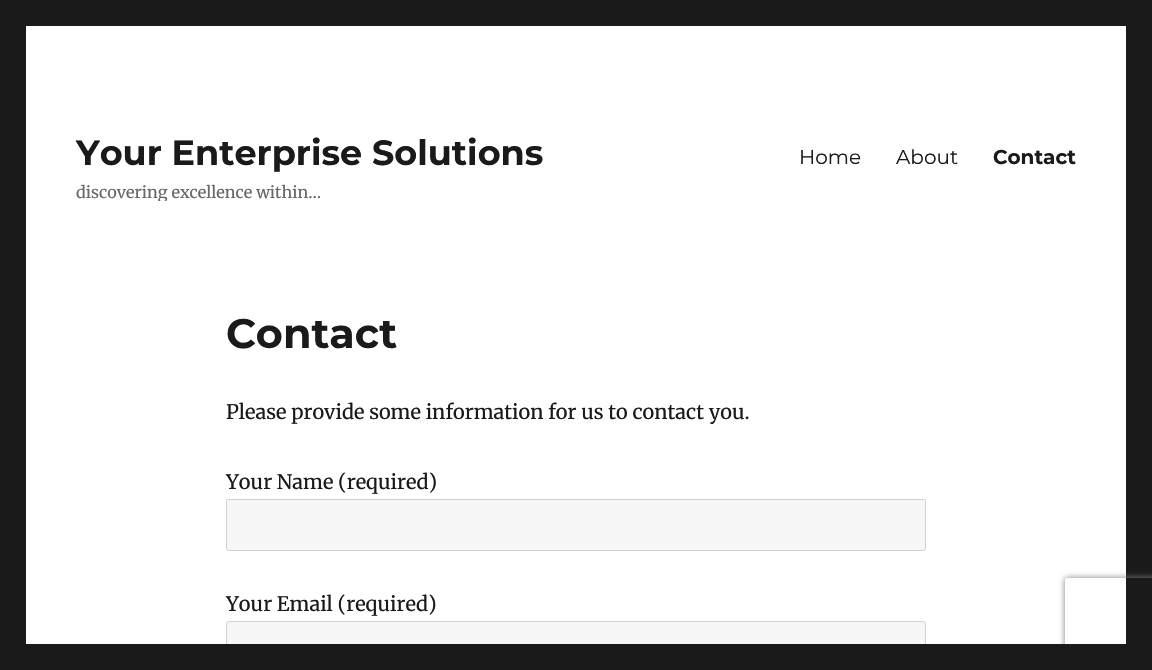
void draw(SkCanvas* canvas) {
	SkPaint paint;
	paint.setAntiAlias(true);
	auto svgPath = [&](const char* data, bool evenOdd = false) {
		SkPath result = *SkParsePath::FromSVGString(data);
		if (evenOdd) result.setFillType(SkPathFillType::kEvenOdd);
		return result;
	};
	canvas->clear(0xff1a1a1a);
	paint.setColor(0xffffffff);
	canvas->drawRect(SkRect::MakeXYWH(26, 26, 1100, 618), paint);
	SkFont f1(fontMgr->matchFamilyStyle("Montserrat", SkFontStyle::Bold()), 35);
	f1.setSubpixel(true);
	paint.setColor(0xff1a1a1a);
	canvas->drawString("Your Enterprise Solutions", 76, 165, f1, paint);
	canvas->save();
	canvas->clipRect(SkRect::MakeXYWH(76, 131, 468, 70));
	SkFont f2(fontMgr->matchFamilyStyle("Merriweather", SkFontStyle::Normal()), 16.25);
	f2.setSubpixel(true);
	paint.setColor(0xff686868);
	canvas->drawString("discovering excellence within…", 76, 198, f2, paint);
	canvas->restore();
	SkFont f3(fontMgr->matchFamilyStyle("Montserrat", SkFontStyle::Normal()), 20);
	f3.setSubpixel(true);
	paint.setColor(0xff1a1a1a);
	canvas->drawString("Home", 799, 164, f3, paint);
	canvas->drawString("About", 896, 164, f3, paint);
	SkFont f4(fontMgr->matchFamilyStyle("Montserrat", SkFontStyle::Bold()), 20);
	f4.setSubpixel(true);
	canvas->drawString("Contact", 993, 164, f4, paint);
	SkFont f5(fontMgr->matchFamilyStyle("Montserrat", SkFontStyle::Bold()), 41.25);
	f5.setSubpixel(true);
	canvas->drawString("Contact", 226, 348, f5, paint);
	SkFont f6(fontMgr->matchFamilyStyle("Merriweather", SkFontStyle::Normal()), 20);
	f6.setSubpixel(true);
	canvas->drawString("Please provide some information for us to contact you.", 226, 419, f6, paint);
	canvas->drawString("Your Name (required)", 226, 489, f6, paint);
	paint.setColor(0xfff7f7f7);
	canvas->drawRoundRect(SkRect::MakeXYWH(226.5, 499.5, 699, 51), 2, 2, paint);
	paint.setStroke(true);
	paint.setStrokeWidth(1);
	paint.setColor(0xffd1d1d1);
	canvas->drawRoundRect(SkRect::MakeXYWH(226.5, 499.5, 699, 51), 2, 2, paint);
	paint.setStroke(false);
	paint.setColor(0xff1a1a1a);
	canvas->drawString("Your Email (required)", 226, 611, f6, paint);
	paint.setColor(0xfff7f7f7);
	canvas->drawRoundRect(SkRect::MakeXYWH(226.5, 621.5, 699, 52), 2, 2, paint);
	paint.setStroke(true);
	paint.setColor(0xffd1d1d1);
	canvas->drawRoundRect(SkRect::MakeXYWH(226.5, 621.5, 699, 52), 2, 2, paint);
	canvas->save();
	canvas->clipPath(svgPath("M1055 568H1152V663H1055ZM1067.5 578H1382.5C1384 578 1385 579 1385 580.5V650.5C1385 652 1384 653 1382.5 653H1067.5C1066 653 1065 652 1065 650.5V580.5C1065 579 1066 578 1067.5 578Z", true), true);
	paint.setStroke(false);
	paint.setColor(0xff808080);
	paint.setMaskFilter(SkMaskFilter::MakeBlur(kNormal_SkBlurStyle, 3));
	canvas->drawRoundRect(SkRect::MakeXYWH(1065, 578, 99, 75), 2.5, 2.5, paint);
	paint.setMaskFilter(nullptr);
	canvas->restore();
	paint.setColor(0xff1a1a1a);
	canvas->drawRect(SkRect::MakeXYWH(226, 644, 926, 26), paint);
}
